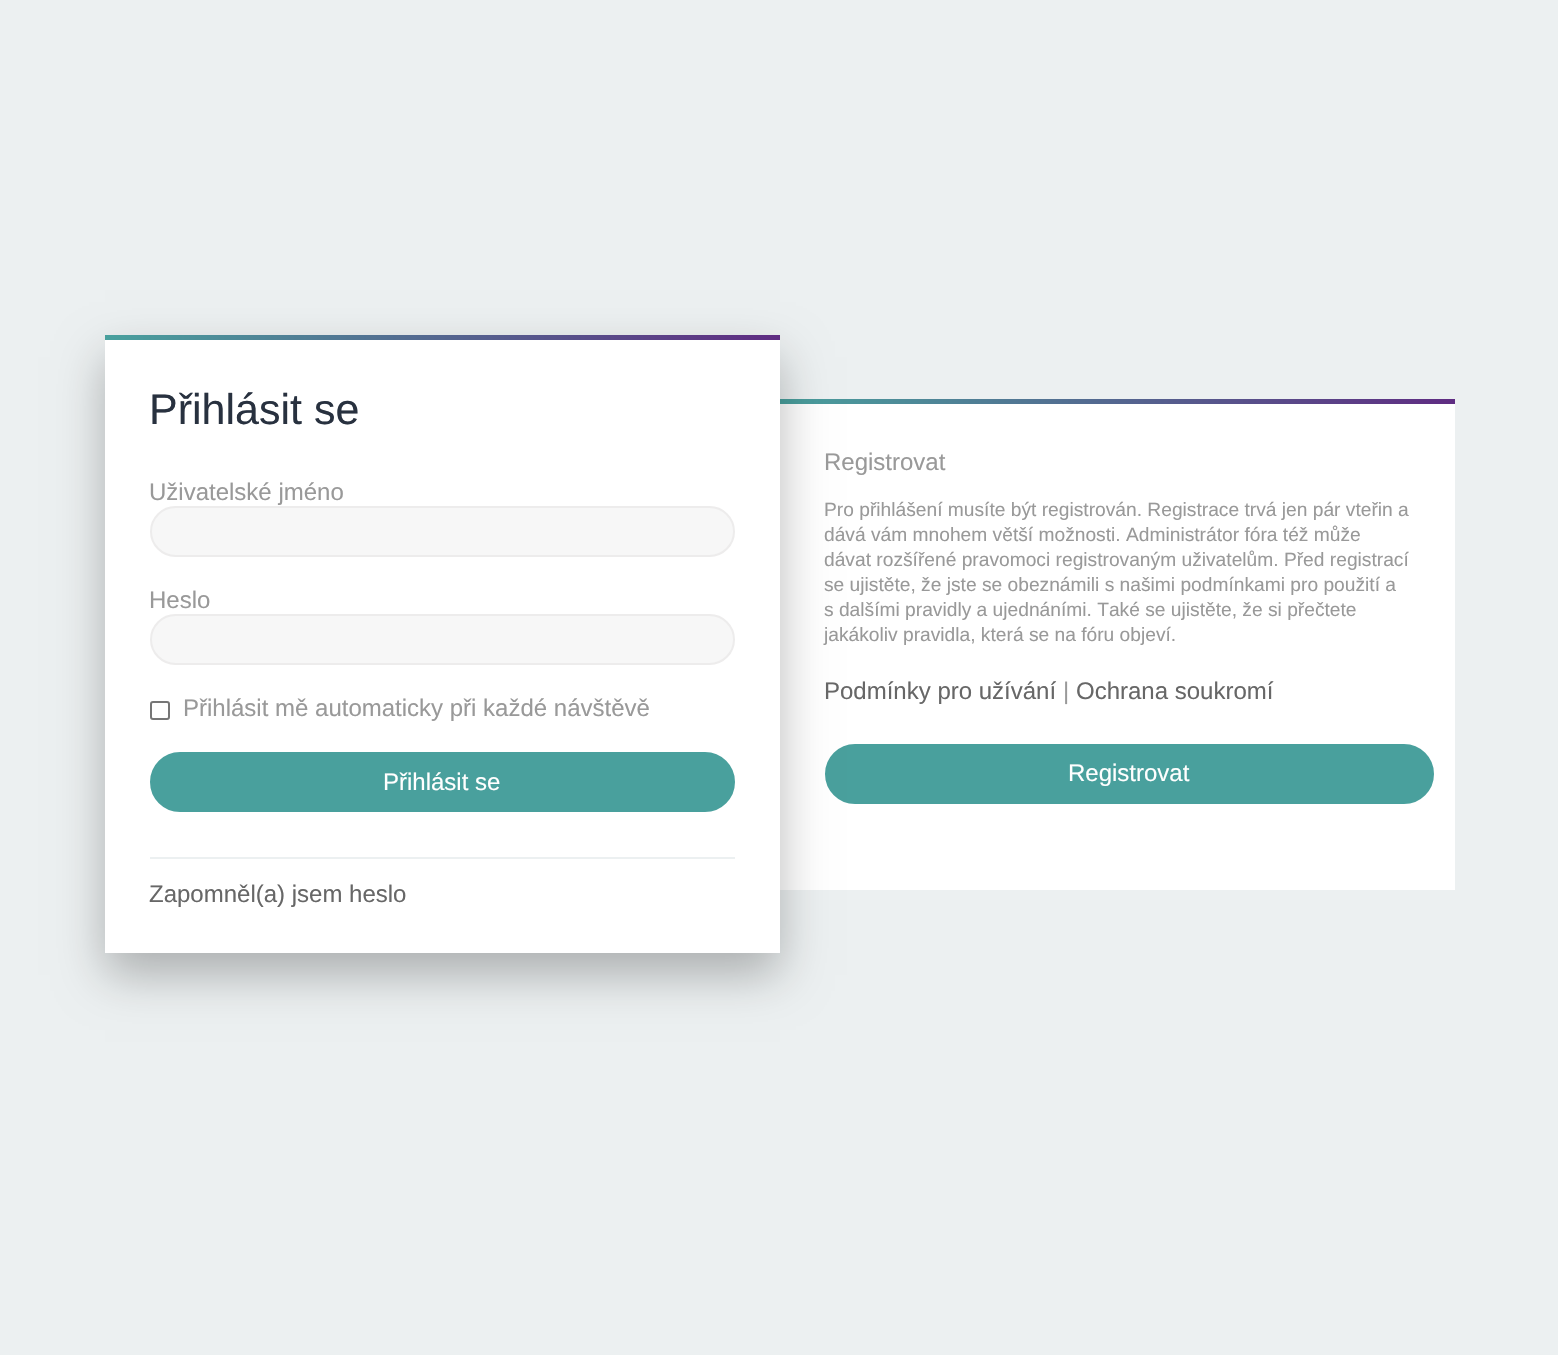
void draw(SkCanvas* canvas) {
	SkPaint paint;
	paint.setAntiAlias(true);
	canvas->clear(0xffecf0f1);
	paint.setColor(0xffffffff);
	canvas->drawRect(SkRect::MakeXYWH(780, 404, 675, 486), paint);
	{
		const SkColor colors[] = {0xff49a09d, 0xff5f2c82};
		const float stops[] = {0, 1};
		const SkPoint ends[] = {{780, 401}, {1455, 401}};
		paint.setShader(SkGradientShader::MakeLinear(ends, colors, stops, 2, SkTileMode::kClamp));
		paint.setAlpha(255);
	}
	canvas->drawRect(SkRect::MakeXYWH(780, 399, 675, 5), paint);
	paint.setShader(nullptr);
	paint.setColor(0xff49a09d);
	canvas->drawRoundRect(SkRect::MakeXYWH(826, 745, 607, 58), 29, 29, paint);
	paint.setStroke(true);
	paint.setStrokeWidth(2);
	canvas->drawRoundRect(SkRect::MakeXYWH(826, 745, 607, 58), 29, 29, paint);
	paint.setStroke(false);
	paint.setColor(0x45000000);
	paint.setMaskFilter(SkMaskFilter::MakeBlur(kNormal_SkBlurStyle, 22.5));
	canvas->drawRect(SkRect::MakeXYWH(105, 357, 675, 618), paint);
	paint.setMaskFilter(nullptr);
	paint.setColor(0xffffffff);
	canvas->drawRect(SkRect::MakeXYWH(105, 340, 675, 613), paint);
	{
		const SkColor colors[] = {0xff49a09d, 0xff5f2c82};
		const float stops[] = {0, 1};
		const SkPoint ends[] = {{105, 337}, {780, 337}};
		paint.setShader(SkGradientShader::MakeLinear(ends, colors, stops, 2, SkTileMode::kClamp));
		paint.setAlpha(255);
	}
	canvas->drawRect(SkRect::MakeXYWH(105, 335, 675, 5), paint);
	SkFont f1(fontMgr->matchFamilyStyle("Liberation Sans", SkFontStyle::Normal()), 43);
	f1.setSubpixel(true);
	paint.setShader(nullptr);
	paint.setColor(0xff28313f);
	canvas->drawString("Přihlásit se", 149, 424, f1, paint);
	SkFont f2(fontMgr->matchFamilyStyle("Liberation Sans", SkFontStyle::Normal()), 24);
	f2.setSubpixel(true);
	paint.setColor(0xff999999);
	canvas->drawString("Uživatelské jméno", 149, 500, f2, paint);
	paint.setColor(0xfff7f7f7);
	canvas->drawRoundRect(SkRect::MakeXYWH(151, 507, 583, 49), 24.5, 24.5, paint);
	paint.setStroke(true);
	paint.setColor(0xffedecec);
	canvas->drawRoundRect(SkRect::MakeXYWH(151, 507, 583, 49), 24.5, 24.5, paint);
	paint.setStroke(false);
	paint.setColor(0xff999999);
	canvas->drawString("Heslo", 149, 608, f2, paint);
	paint.setColor(0xfff7f7f7);
	canvas->drawRoundRect(SkRect::MakeXYWH(151, 615, 583, 49), 24.5, 24.5, paint);
	paint.setStroke(true);
	paint.setColor(0xffedecec);
	canvas->drawRoundRect(SkRect::MakeXYWH(151, 615, 583, 49), 24.5, 24.5, paint);
	paint.setColor(0xff767676);
	canvas->drawRoundRect(SkRect::MakeXYWH(151, 702, 18, 17), 2, 2, paint);
	paint.setStroke(false);
	paint.setColor(0xff999999);
	canvas->drawString("Přihlásit mě automaticky při každé návštěvě", 183, 716, f2, paint);
	paint.setColor(0xff49a09d);
	canvas->drawRoundRect(SkRect::MakeXYWH(151, 753, 583, 58), 29, 29, paint);
	paint.setStroke(true);
	canvas->drawRoundRect(SkRect::MakeXYWH(151, 753, 583, 58), 29, 29, paint);
	paint.setStroke(false);
	paint.setColor(0xffffffff);
	canvas->drawString("Přihlásit se", 383, 790, f2, paint);
	paint.setColor(0xffecf0f1);
	canvas->drawRect(SkRect::MakeXYWH(150, 857, 585, 2), paint);
	paint.setColor(0xff676767);
	canvas->drawString("Zapomněl(a) jsem heslo", 149, 902, f2, paint);
	paint.setColor(0xff999999);
	canvas->drawString("Registrovat", 824, 470, f2, paint);
	SkFont f3(fontMgr->matchFamilyStyle("Liberation Sans", SkFontStyle::Normal()), 19.2);
	f3.setSubpixel(true);
	canvas->drawString("Pro přihlášení musíte být registrován. Registrace trvá jen pár vteřin a", 824, 516, f3, paint);
	canvas->drawString("dává vám mnohem větší možnosti. Administrátor fóra též může", 824, 541, f3, paint);
	canvas->drawString("dávat rozšířené pravomoci registrovaným uživatelům. Před registrací", 824, 566, f3, paint);
	canvas->drawString("se ujistěte, že jste se obeznámili s našimi podmínkami pro použití a", 824, 591, f3, paint);
	canvas->drawString("s dalšími pravidly a ujednáními. Také se ujistěte, že si přečtete", 824, 616, f3, paint);
	canvas->drawString("jakákoliv pravidla, která se na fóru objeví.", 824, 641, f3, paint);
	paint.setColor(0xff676767);
	canvas->drawString("Podmínky pro užívání", 824, 699, f2, paint);
	paint.setColor(0xff999999);
	canvas->drawString("|", 1063, 699, f2, paint);
	paint.setColor(0xff676767);
	canvas->drawString("Ochrana soukromí", 1076, 699, f2, paint);
	paint.setColor(0xffffffff);
	canvas->drawString("Registrovat", 1068, 781, f2, paint);
}
